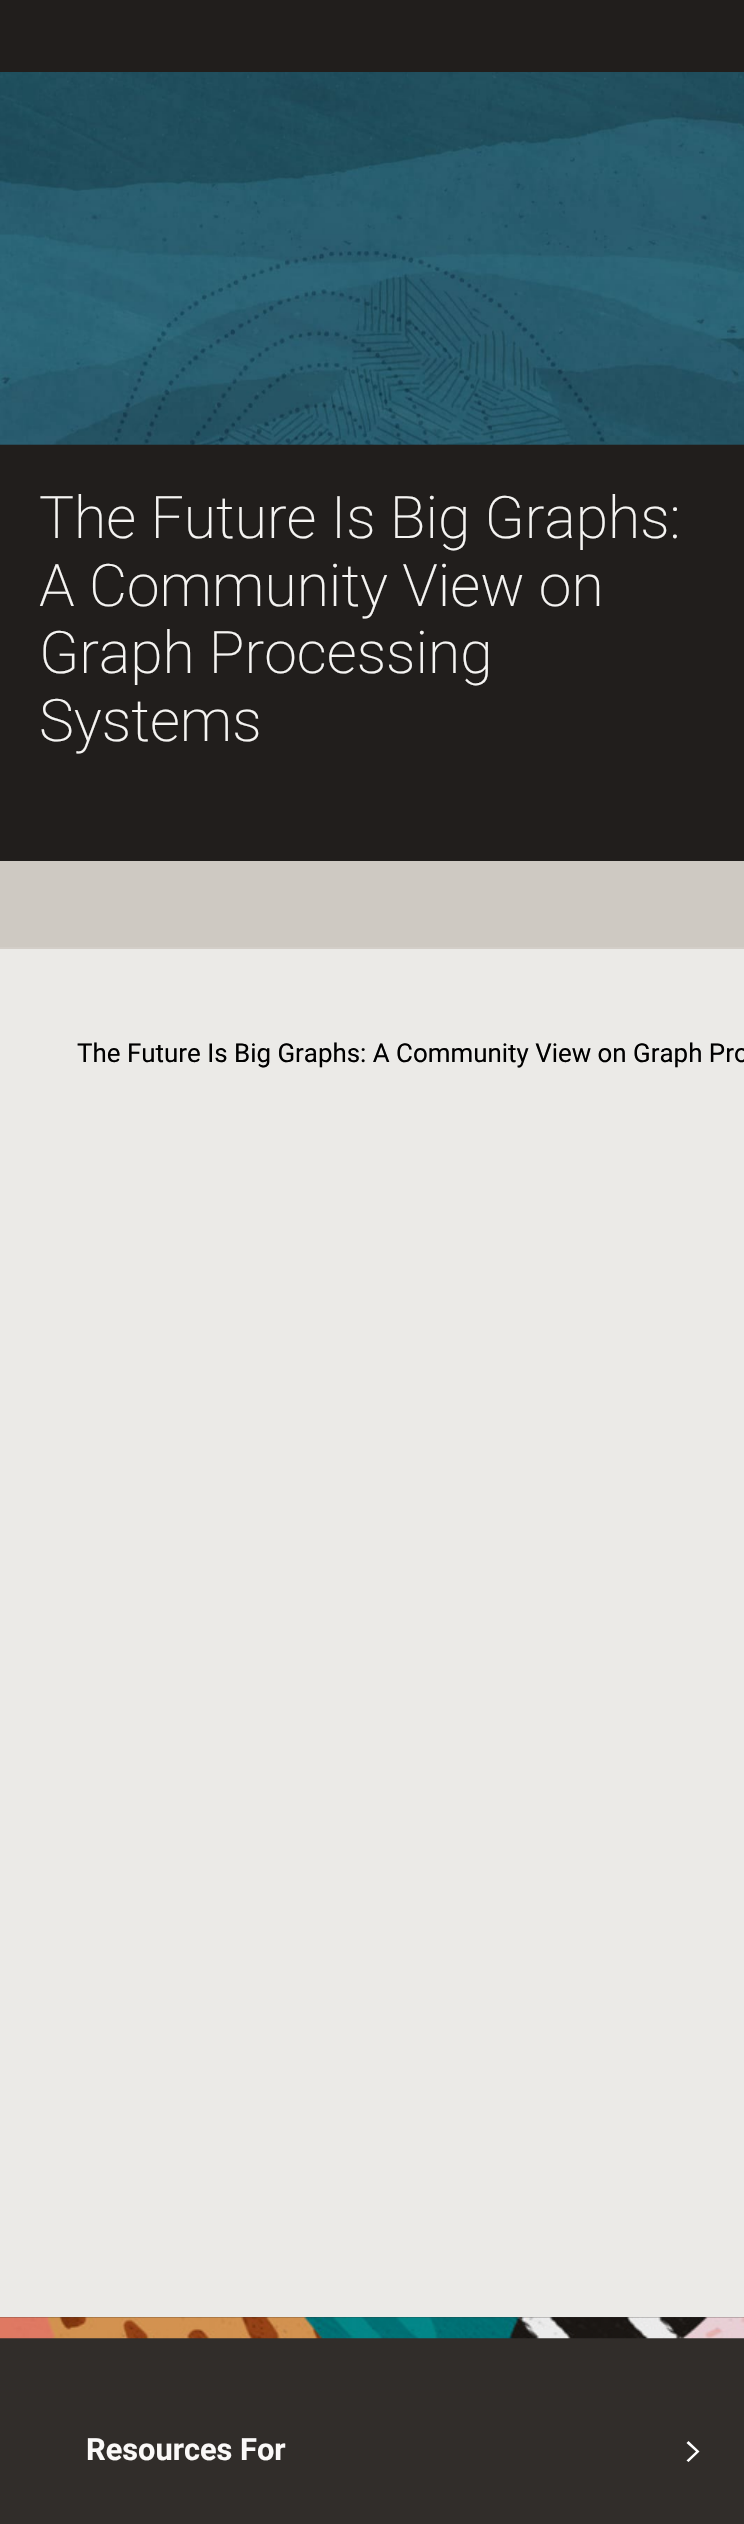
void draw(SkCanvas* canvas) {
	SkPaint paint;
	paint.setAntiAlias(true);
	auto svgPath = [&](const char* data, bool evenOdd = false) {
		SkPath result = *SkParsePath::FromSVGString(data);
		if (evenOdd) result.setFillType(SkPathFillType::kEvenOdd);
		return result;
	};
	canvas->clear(0xffebeae7);
	paint.setColor(0xff211e1c);
	canvas->drawRect(SkRect::MakeXYWH(0, 0, 744, 861), paint);
	canvas->drawImageRect(SkImages::DeferredFromEncodedData(SkData::MakeFromFileName("img1.png")), SkRect::MakeXYWH(0, 72, 744, 373), SkSamplingOptions());
	SkFont f1(fontMgr->matchFamilyStyle("Roboto", SkFontStyle(200, SkFontStyle::kNormal_Width, SkFontStyle::kUpright_Slant)), 58.75);
	f1.setSubpixel(true);
	paint.setColor(0xfff5f4f2);
	canvas->drawString("The Future Is Big Graphs:", 39, 538, f1, paint);
	canvas->drawString("A Community View on", 39, 606, f1, paint);
	canvas->drawString("Graph Processing", 39, 673, f1, paint);
	canvas->drawString("Systems", 39, 741, f1, paint);
	paint.setColor(0xffcec9c2);
	canvas->drawRect(SkRect::MakeXYWH(0, 861, 744, 86), paint);
	paint.setColor(0xffd3cec8);
	canvas->drawRect(SkRect::MakeXYWH(0, 947, 744, 2), paint);
	SkFont f2(fontMgr->matchFamilyStyle("Roboto", SkFontStyle::Normal()), 25.9);
	f2.setSubpixel(true);
	paint.setColor(0xff000000);
	canvas->drawString("The Future Is Big Graphs: A Community View on Graph Pro", 77, 1062, f2, paint);
	paint.setColor(0xff312d2a);
	canvas->drawRect(SkRect::MakeXYWH(0, 2317, 744, 207), paint);
	canvas->drawImageRect(SkImages::DeferredFromEncodedData(SkData::MakeFromFileName("img2.png")), SkRect::MakeXYWH(0, 2317, 744, 22), SkSamplingOptions());
	SkFont f3(fontMgr->matchFamilyStyle("Roboto", SkFontStyle::Bold()), 30.75);
	f3.setSubpixel(true);
	paint.setColor(0xfffbf9f8);
	canvas->drawString("Resources For", 86, 2460, f3, paint);
	paint.setColor(0xffffffff);
	canvas->drawPath(svgPath("M686.5 2443L696 2451.5L686.5 2460.5L688.5 2462L699.5 2451.5L688.5 2441", true), paint);
}
